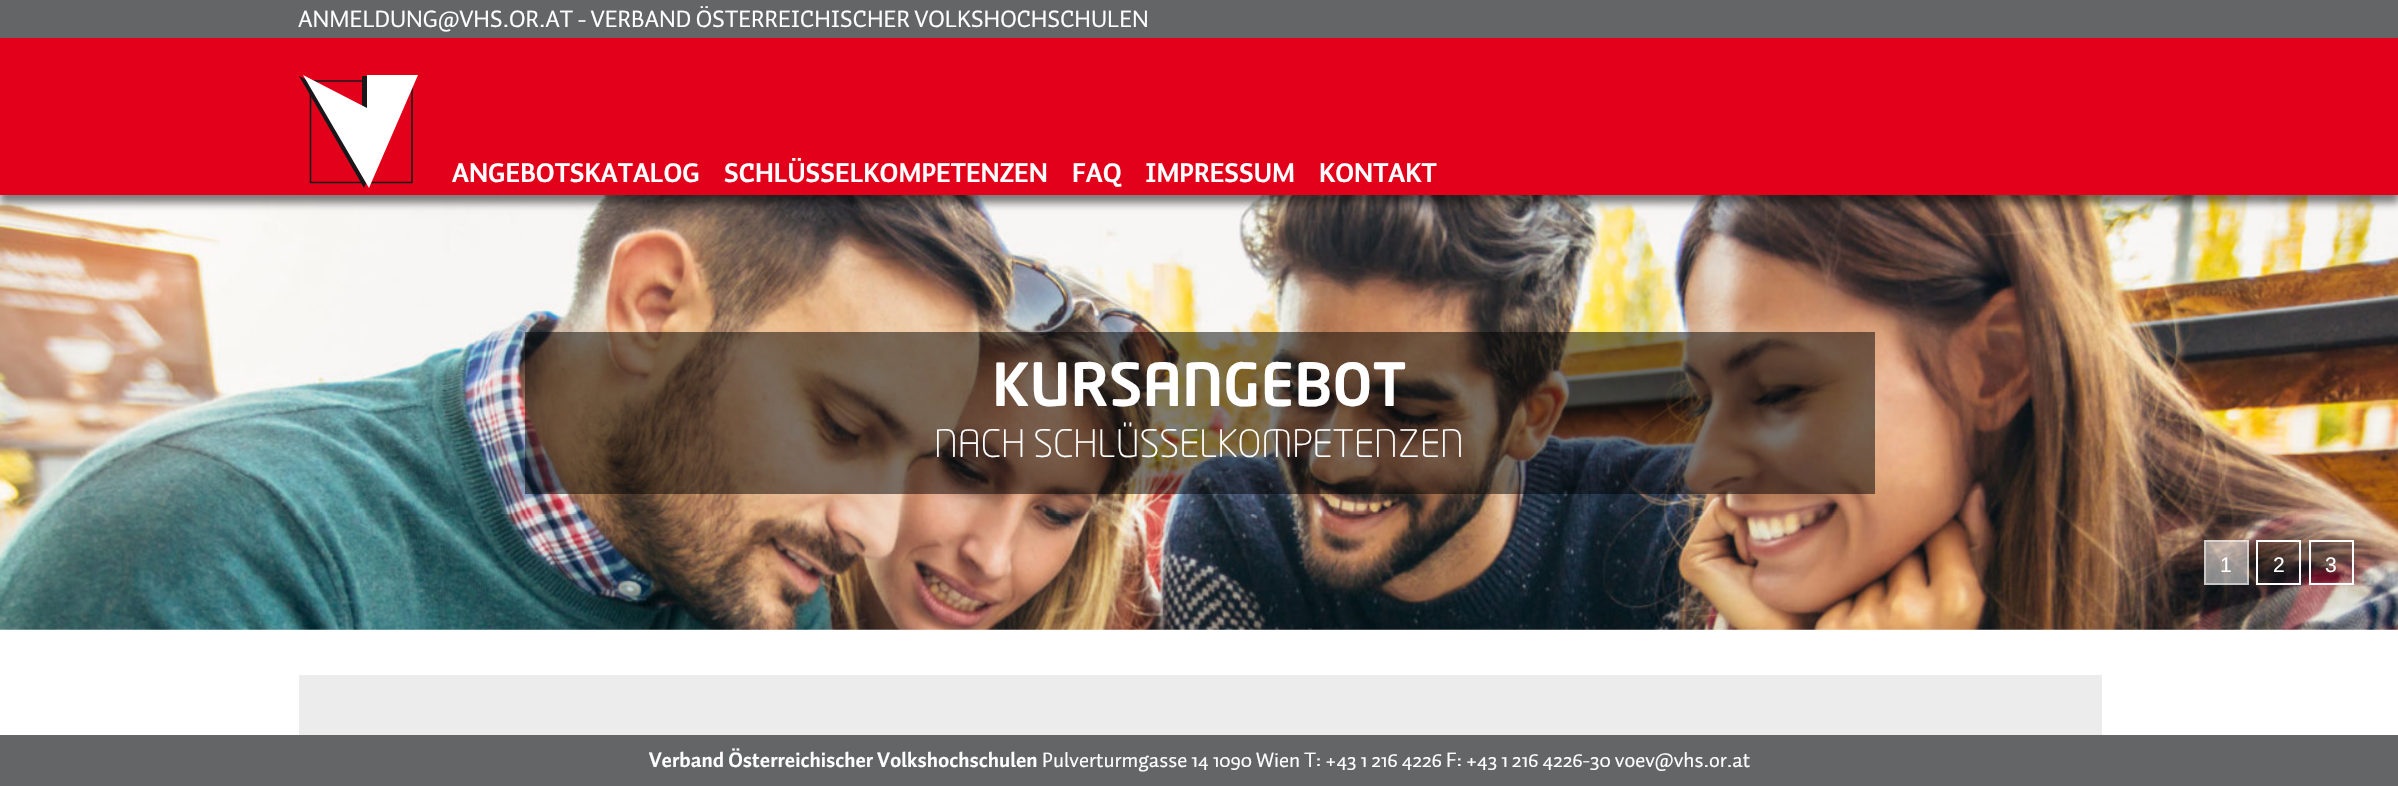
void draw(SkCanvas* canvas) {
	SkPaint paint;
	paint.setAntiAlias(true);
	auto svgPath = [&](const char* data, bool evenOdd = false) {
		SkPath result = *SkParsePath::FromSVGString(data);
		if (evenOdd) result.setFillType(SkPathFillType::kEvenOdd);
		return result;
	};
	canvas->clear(0xffffffff);
	canvas->drawImageRect(SkImages::DeferredFromEncodedData(SkData::MakeFromFileName("img2.png")), SkRect::MakeXYWH(0, 629, 1, 1), SkSamplingOptions());
	canvas->drawImageRect(SkImages::DeferredFromEncodedData(SkData::MakeFromFileName("img1.png")), SkRect::MakeXYWH(0, 195, 2398, 435), SkSamplingOptions());
	paint.setColor(0x80000000);
	paint.setMaskFilter(SkMaskFilter::MakeBlur(kNormal_SkBlurStyle, 4));
	canvas->drawRect(SkRect::MakeXYWH(0, 8, 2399, 195), paint);
	paint.setMaskFilter(nullptr);
	paint.setColor(0xffe2001a);
	canvas->drawRect(SkRect::MakeXYWH(0, 38, 2398, 157), paint);
	paint.setColor(0xff646567);
	canvas->drawRect(SkRect::MakeXYWH(0, 0, 2398, 38), paint);
	SkFont f1(fontMgr->matchFamilyStyle("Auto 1", SkFontStyle::Normal()), 24);
	f1.setSubpixel(true);
	paint.setColor(0xffffffff);
	canvas->drawString("ANMELDUNG@VHS.OR.AT - VERBAND ÖSTERREICHISCHER VOLKSHOCHSCHULEN", 298, 27, f1, paint);
	paint.setStroke(true);
	paint.setStrokeWidth(1.6);
	paint.setColor(0xff1a171b);
	canvas->drawPath(svgPath("M310.5 81H412V182.5H310.5Z"), paint);
	paint.setStroke(false);
	canvas->drawPath(svgPath("M362 76V109L299 76L364 188L414 76Z"), paint);
	paint.setColor(0xffffffff);
	canvas->drawPath(svgPath("M367 75V108L303 75L369 188L418 75Z"), paint);
	SkFont f2(fontMgr->matchFamilyStyle("Auto 1", SkFontStyle::Bold()), 27);
	f2.setSubpixel(true);
	canvas->drawString("ANGEBOTSKATALOG", 452, 182, f2, paint);
	canvas->drawString("SCHLÜSSELKOMPETENZEN", 724, 182, f2, paint);
	canvas->drawString("FAQ", 1072, 182, f2, paint);
	canvas->drawString("IMPRESSUM", 1145, 182, f2, paint);
	canvas->drawString("KONTAKT", 1319, 182, f2, paint);
	paint.setColor(0x80000000);
	canvas->drawRect(SkRect::MakeXYWH(525, 332, 1350, 162), paint);
	SkFont f3(fontMgr->matchFamilyStyle("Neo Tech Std", SkFontStyle(500, SkFontStyle::kNormal_Width, SkFontStyle::kUpright_Slant)), 58.75);
	f3.setSubpixel(true);
	paint.setColor(0xffffffff);
	canvas->drawString("KURSANGEBOT", 992, 406, f3, paint);
	SkFont f4(fontMgr->matchFamilyStyle("Neo Tech Std", SkFontStyle(300, SkFontStyle::kNormal_Width, SkFontStyle::kUpright_Slant)), 37.5);
	f4.setSubpixel(true);
	canvas->drawString("NACH SCHLÜSSELKOMPETENZEN", 934, 457, f4, paint);
	paint.setColor(0x80ffffff);
	canvas->drawRect(SkRect::MakeXYWH(2204, 540, 45, 45), paint);
	paint.setStroke(true);
	paint.setStrokeWidth(2);
	canvas->drawRect(SkRect::MakeXYWH(2205, 541, 43, 43), paint);
	SkFont f5(fontMgr->matchFamilyStyle("Liberation Sans", SkFontStyle::Normal()), 21);
	f5.setSubpixel(true);
	paint.setStroke(false);
	paint.setColor(0xffffffff);
	canvas->drawString("1", 2220, 572, f5, paint);
	paint.setStroke(true);
	canvas->drawRect(SkRect::MakeXYWH(2257, 541, 43, 43), paint);
	paint.setStroke(false);
	canvas->drawString("2", 2273, 572, f5, paint);
	paint.setStroke(true);
	canvas->drawRect(SkRect::MakeXYWH(2310, 541, 43, 43), paint);
	paint.setStroke(false);
	canvas->drawString("3", 2325, 572, f5, paint);
	paint.setColor(0xffececec);
	canvas->drawRect(SkRect::MakeXYWH(299, 675, 1803, 60), paint);
	paint.setColor(0xff646567);
	canvas->drawRect(SkRect::MakeXYWH(0, 735, 2398, 51), paint);
	SkFont f6(fontMgr->matchFamilyStyle("Auto 1", SkFontStyle::Bold()), 21);
	f6.setSubpixel(true);
	paint.setColor(0xffffffff);
	canvas->drawString("Verband Österreichischer Volkshochschulen", 649, 767, f6, paint);
	SkFont f7(fontMgr->matchFamilyStyle("Auto 1", SkFontStyle::Normal()), 21);
	f7.setSubpixel(true);
	canvas->drawString("Pulverturmgasse 14 1090 Wien T: +43 1 216 4226 F: +43 1 216 4226-30 voev@vhs.or.at", 1042, 767, f7, paint);
}
